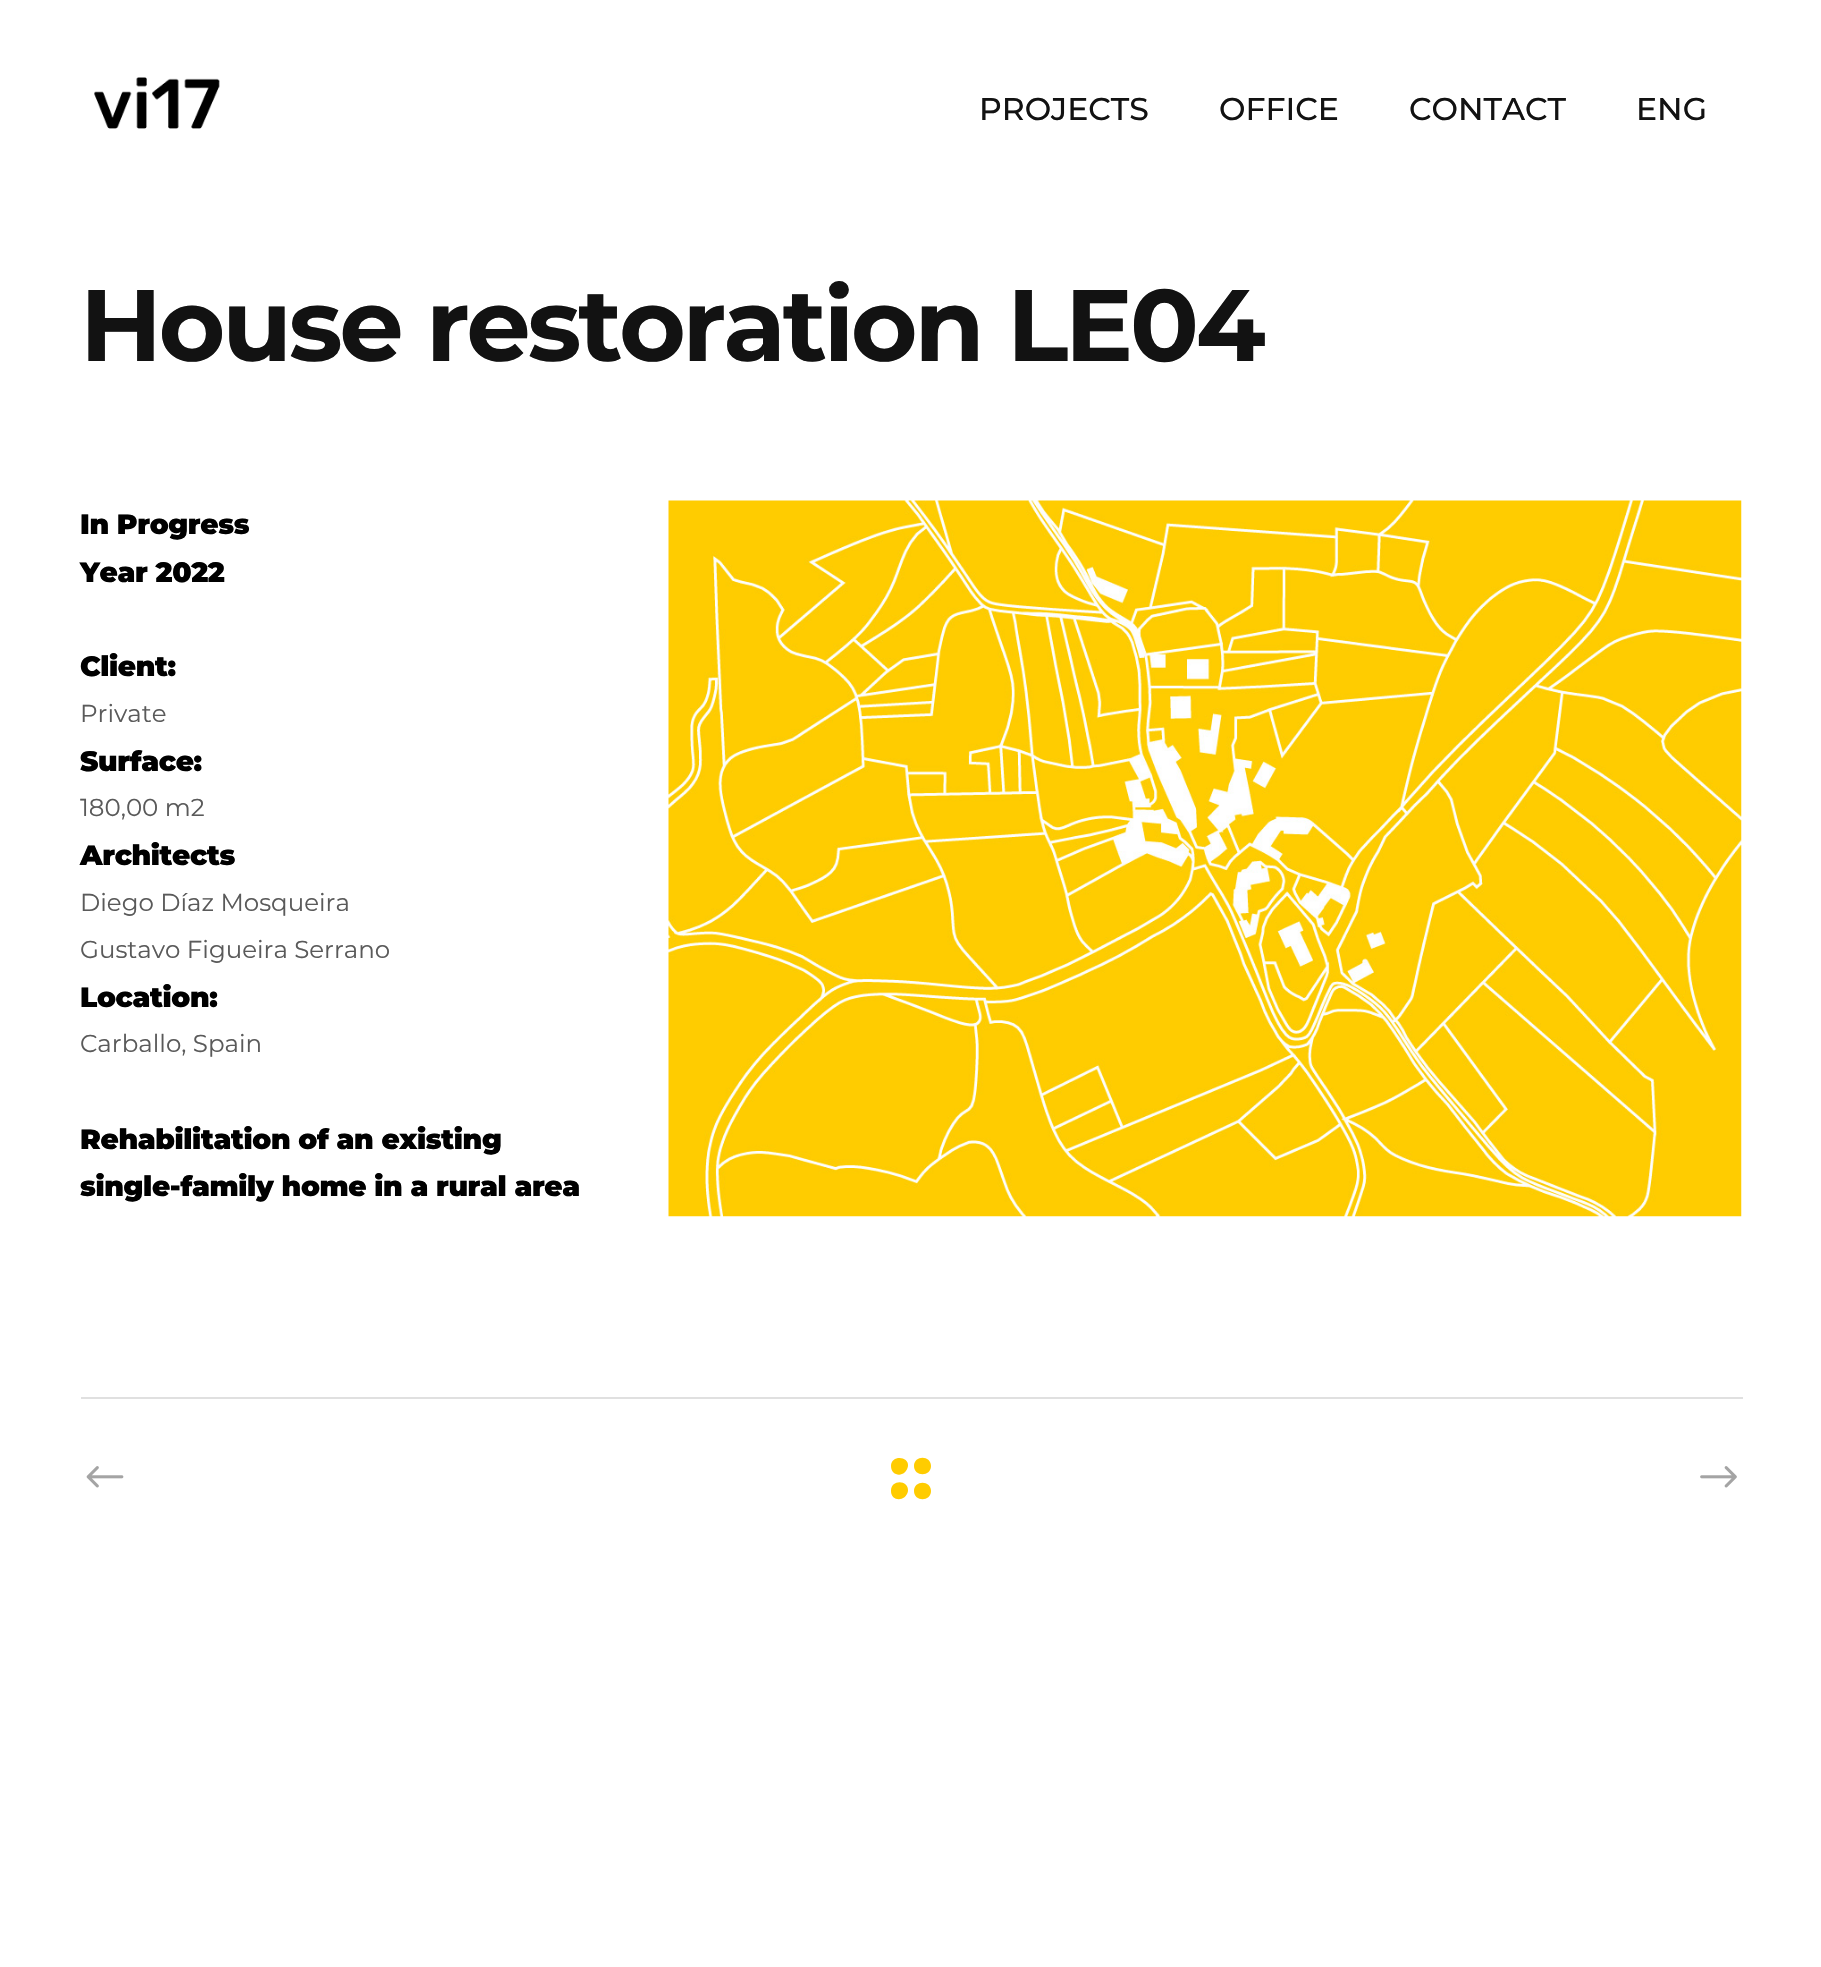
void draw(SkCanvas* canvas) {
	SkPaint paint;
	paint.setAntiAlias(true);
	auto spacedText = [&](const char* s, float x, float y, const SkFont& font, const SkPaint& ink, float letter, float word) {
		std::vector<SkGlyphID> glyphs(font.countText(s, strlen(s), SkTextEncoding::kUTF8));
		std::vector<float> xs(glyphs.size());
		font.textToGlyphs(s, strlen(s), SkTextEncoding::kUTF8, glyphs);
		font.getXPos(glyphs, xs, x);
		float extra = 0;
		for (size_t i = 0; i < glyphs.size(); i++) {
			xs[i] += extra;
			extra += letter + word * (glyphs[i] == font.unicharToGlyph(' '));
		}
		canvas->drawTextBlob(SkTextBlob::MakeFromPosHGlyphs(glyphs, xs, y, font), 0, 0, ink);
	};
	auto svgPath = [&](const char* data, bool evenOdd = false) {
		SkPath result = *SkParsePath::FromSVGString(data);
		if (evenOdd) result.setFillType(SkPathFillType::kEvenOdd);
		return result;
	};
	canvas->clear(0xffffffff);
	canvas->drawImageRect(SkImages::DeferredFromEncodedData(SkData::MakeFromFileName("img1.png")), SkRect::MakeXYWH(94, 77, 126, 52), SkSamplingOptions());
	SkFont f1(fontMgr->matchFamilyStyle("Montserrat", SkFontStyle(500, SkFontStyle::kNormal_Width, SkFontStyle::kUpright_Slant)), 31.5);
	f1.setSubpixel(true);
	paint.setColor(0xff121212);
	canvas->drawString("PROJECTS", 979, 120, f1, paint);
	canvas->drawString("OFFICE", 1219, 120, f1, paint);
	canvas->drawString("CONTACT", 1409, 120, f1, paint);
	canvas->drawString("ENG", 1636, 120, f1, paint);
	SkFont f2(fontMgr->matchFamilyStyle("Montserrat", SkFontStyle::Bold()), 101.5);
	f2.setSubpixel(true);
	spacedText("House restoration LE04", 80, 361, f2, paint, -3.15, 0);
	SkFont f3(fontMgr->matchFamilyStyle("Montserrat", SkFontStyle(900, SkFontStyle::kNormal_Width, SkFontStyle::kUpright_Slant)), 28);
	f3.setSubpixel(true);
	paint.setColor(0xff000000);
	spacedText("In Progress", 80, 534, f3, paint, -0.35, 0);
	spacedText("Year 2022", 80, 582, f3, paint, -0.35, 0);
	spacedText("Client:", 80, 676, f3, paint, -0.35, 0);
	SkFont f4(fontMgr->matchFamilyStyle("Montserrat", SkFontStyle::Normal()), 24.5);
	f4.setSubpixel(true);
	paint.setColor(0xff5a5a5a);
	canvas->drawString("Private", 80, 722, f4, paint);
	paint.setColor(0xff000000);
	spacedText("Surface:", 80, 771, f3, paint, -0.35, 0);
	paint.setColor(0xff5a5a5a);
	canvas->drawString("180,00 m2", 80, 816, f4, paint);
	paint.setColor(0xff000000);
	spacedText("Architects", 80, 865, f3, paint, -0.35, 0);
	paint.setColor(0xff5a5a5a);
	canvas->drawString("Diego Díaz Mosqueira", 80, 911, f4, paint);
	canvas->drawString("Gustavo Figueira Serrano", 80, 958, f4, paint);
	paint.setColor(0xff000000);
	spacedText("Location:", 80, 1007, f3, paint, -0.35, 0);
	paint.setColor(0xff5a5a5a);
	canvas->drawString("Carballo, Spain", 80, 1052, f4, paint);
	paint.setColor(0xff000000);
	spacedText("Rehabilitation of an existing", 80, 1149, f3, paint, -0.35, 0);
	spacedText("single-family home in a rural area", 80, 1196, f3, paint, -0.35, 0);
	canvas->drawImageRect(SkImages::DeferredFromEncodedData(SkData::MakeFromFileName("img2.png")), SkRect::MakeXYWH(668, 500, 1074, 717), SkSamplingOptions());
	paint.setColor(0xffe0e0e0);
	canvas->drawRect(SkRect::MakeXYWH(81, 1397, 1662, 2), paint);
	canvas->drawImageRect(SkImages::DeferredFromEncodedData(SkData::MakeFromFileName("img3.png")), SkRect::MakeXYWH(86, 1466, 38, 22), SkSamplingOptions());
	paint.setColor(0xffffcc00);
	canvas->drawPath(svgPath("M891 1466C891 1455 909 1456 908 1466C906 1478 891 1477 891 1466ZM914 1466C914 1455 931 1455 931 1466C931 1477 914 1477 914 1466ZM891 1491C891 1479 909 1480 908 1491C906 1502 891 1502 891 1491ZM914 1491C914 1480 931 1480 931 1491C931 1502 914 1502 914 1491Z"), paint);
	canvas->drawImageRect(SkImages::DeferredFromEncodedData(SkData::MakeFromFileName("img4.png")), SkRect::MakeXYWH(1700, 1466, 37, 22), SkSamplingOptions());
}
